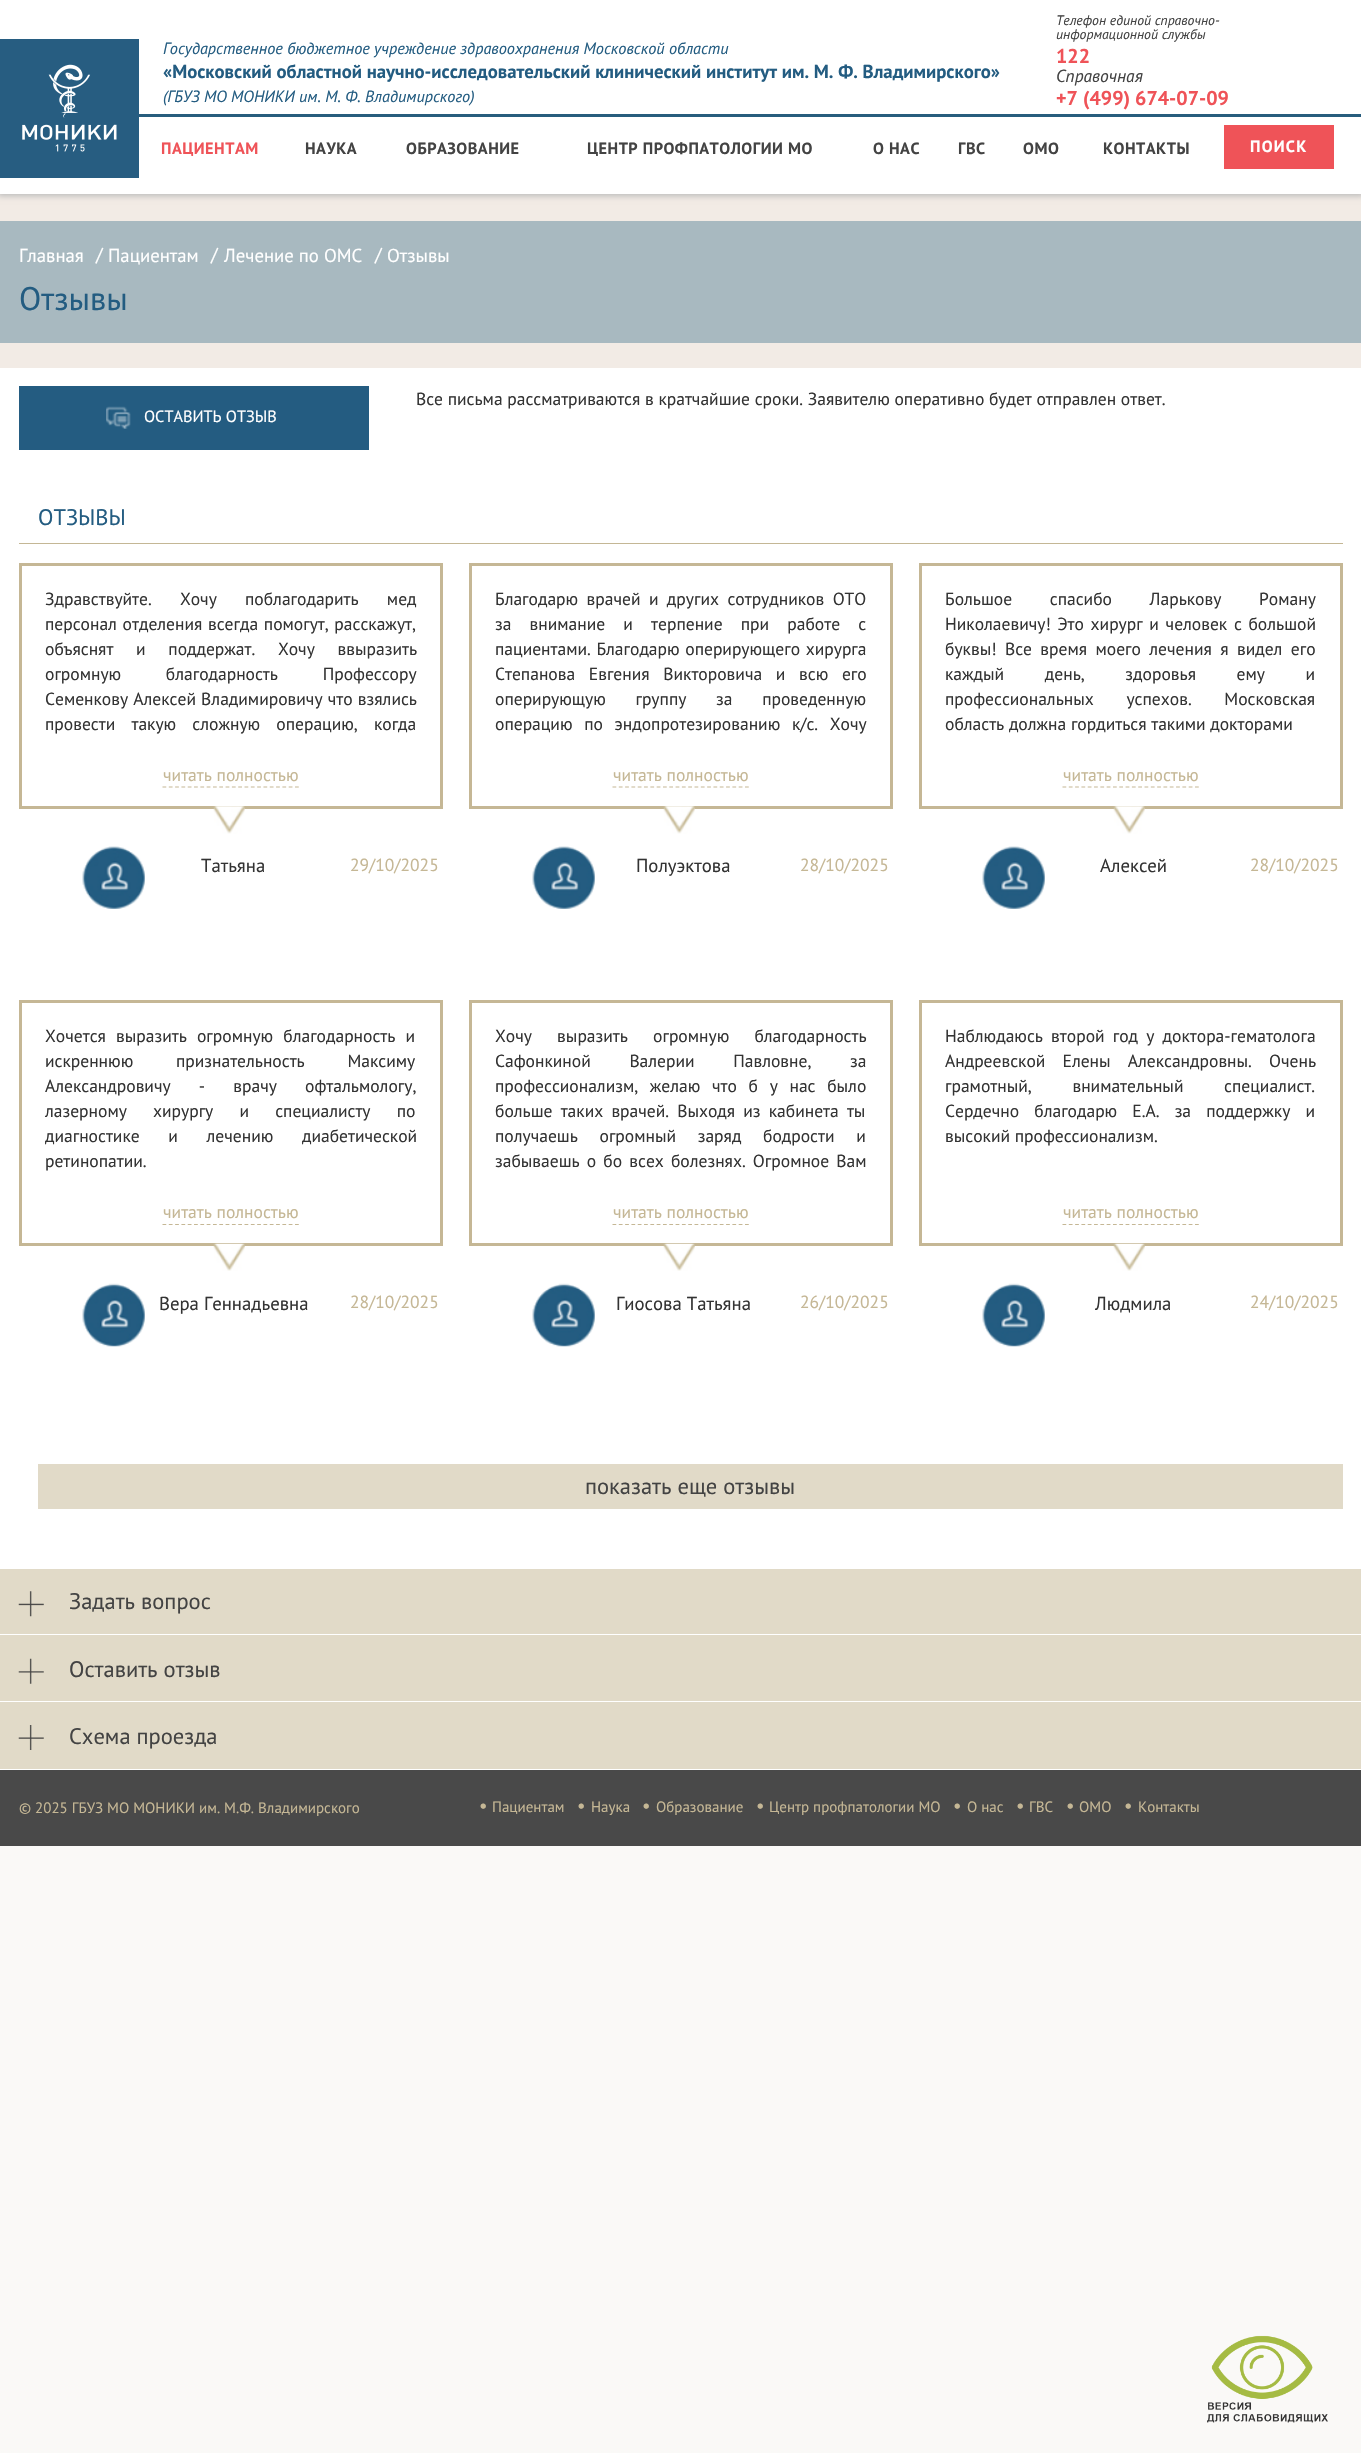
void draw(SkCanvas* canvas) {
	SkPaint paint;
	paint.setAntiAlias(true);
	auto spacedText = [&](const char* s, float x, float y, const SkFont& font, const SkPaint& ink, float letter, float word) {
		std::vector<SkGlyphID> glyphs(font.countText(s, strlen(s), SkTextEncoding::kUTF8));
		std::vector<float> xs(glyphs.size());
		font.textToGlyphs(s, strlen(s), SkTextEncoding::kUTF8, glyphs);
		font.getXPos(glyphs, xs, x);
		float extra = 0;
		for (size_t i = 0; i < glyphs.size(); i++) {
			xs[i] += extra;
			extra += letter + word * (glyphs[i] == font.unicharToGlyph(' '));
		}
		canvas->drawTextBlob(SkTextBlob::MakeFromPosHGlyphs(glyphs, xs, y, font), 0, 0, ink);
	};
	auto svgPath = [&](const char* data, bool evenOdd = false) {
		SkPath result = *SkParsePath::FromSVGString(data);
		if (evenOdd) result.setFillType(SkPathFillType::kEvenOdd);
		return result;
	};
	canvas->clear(0xfffaf9f7);
	paint.setColor(0xfff2ebe5);
	canvas->drawRect(SkRect::MakeXYWH(0, 194, 1361, 174), paint);
	paint.setColor(0xffbbbbbb);
	paint.setMaskFilter(SkMaskFilter::MakeBlur(kNormal_SkBlurStyle, 3));
	canvas->drawRect(SkRect::MakeXYWH(-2, -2, 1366, 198), paint);
	paint.setMaskFilter(nullptr);
	paint.setColor(0xffffffff);
	canvas->drawRect(SkRect::MakeXYWH(0, 0, 1361, 194), paint);
	paint.setColor(0xff285d7d);
	canvas->drawRect(SkRect::MakeXYWH(139, 114, 1222, 3), paint);
	canvas->drawImageRect(SkImages::DeferredFromEncodedData(SkData::MakeFromFileName("img1.png")), SkRect::MakeXYWH(0, 39, 139, 139), SkSamplingOptions());
	SkFont f1(fontMgr->matchFamilyStyle("PT Sans", SkFontStyle::Italic()), 16.25);
	f1.setSubpixel(true);
	paint.setColor(0xff235c81);
	canvas->drawString("Государственное бюджетное учреждение здравоохранения Московской области", 163, 54, f1, paint);
	SkFont f2(fontMgr->matchFamilyStyle("PT Sans", SkFontStyle::Bold()), 18.75);
	f2.setSubpixel(true);
	canvas->drawString("«Московский областной научно-исследовательский клинический институт им. М. Ф. Владимирского»", 163, 78, f2, paint);
	canvas->drawString("(ГБУЗ МО МОНИКИ им. М. Ф. Владимирского)", 163, 102, f1, paint);
	SkFont f3(fontMgr->matchFamilyStyle("PT Sans", SkFontStyle::Italic()), 13.75);
	f3.setSubpixel(true);
	paint.setColor(0xff434343);
	canvas->drawString("Телефон единой справочно-", 1056, 25, f3, paint);
	canvas->drawString("информационной службы", 1056, 39, f3, paint);
	SkFont f4(fontMgr->matchFamilyStyle("PT Sans", SkFontStyle::Bold()), 20);
	f4.setSubpixel(true);
	paint.setColor(0xffef5358);
	canvas->drawString("122", 1056, 63, f4, paint);
	SkFont f5(fontMgr->matchFamilyStyle("PT Sans", SkFontStyle::Italic()), 17.5);
	f5.setSubpixel(true);
	paint.setColor(0xff434343);
	canvas->drawString("Справочная", 1056, 82, f5, paint);
	paint.setColor(0xffef5358);
	canvas->drawString("+7 (499) 674-07-09", 1056, 105, f4, paint);
	SkFont f6(fontMgr->matchFamilyStyle("PT Sans", SkFontStyle::Bold()), 16.25);
	f6.setSubpixel(true);
	spacedText("ПАЦИЕНТАМ", 161, 154, f6, paint, 0.5, 0);
	paint.setColor(0xff434343);
	spacedText("НАУКА", 305, 154, f6, paint, 0.5, 0);
	spacedText("ОБРАЗОВАНИЕ", 406, 154, f6, paint, 0.5, 0);
	spacedText("ЦЕНТР ПРОФПАТОЛОГИИ МО", 587, 154, f6, paint, 0.5, 0);
	spacedText("О НАС", 873, 154, f6, paint, 0.5, 0);
	spacedText("ГВС", 958, 154, f6, paint, 0.5, 0);
	spacedText("ОМО", 1023, 154, f6, paint, 0.5, 0);
	spacedText("КОНТАКТЫ", 1103, 154, f6, paint, 0.5, 0);
	paint.setStroke(true);
	paint.setStrokeWidth(1);
	paint.setColor(0xffef5358);
	canvas->drawRect(SkRect::MakeXYWH(1224.5, 125.5, 109, 43), paint);
	paint.setStroke(false);
	canvas->drawRect(SkRect::MakeXYWH(1225, 126, 108, 42), paint);
	paint.setColor(0xffffffff);
	spacedText("ПОИСК", 1250, 152, f6, paint, 1.25, 0);
	paint.setColor(0xffa8b9c0);
	canvas->drawRect(SkRect::MakeXYWH(0, 221, 1361, 122), paint);
	SkFont f7(fontMgr->matchFamilyStyle("PT Sans", SkFontStyle::Normal()), 18.75);
	f7.setSubpixel(true);
	paint.setColor(0xffffffff);
	canvas->drawString("Главная", 19, 262, f7, paint);
	canvas->drawString("/", 96, 261, f7, paint);
	canvas->drawString("Пациентам", 108, 262, f7, paint);
	canvas->drawString("/", 211, 261, f7, paint);
	canvas->drawString("Лечение по ОМС", 224, 262, f7, paint);
	canvas->drawString("/", 375, 261, f7, paint);
	canvas->drawString("Отзывы", 387, 262, f7, paint);
	SkFont f8(fontMgr->matchFamilyStyle("PT Sans", SkFontStyle::Normal()), 32.5);
	f8.setSubpixel(true);
	paint.setColor(0xff235c81);
	canvas->drawString("Отзывы", 19, 310, f8, paint);
	paint.setColor(0xffffffff);
	canvas->drawRect(SkRect::MakeXYWH(0, 368, 1361, 1201), paint);
	SkFont f9(fontMgr->matchFamilyStyle("PT Sans", SkFontStyle::Normal()), 17.5);
	f9.setSubpixel(true);
	paint.setColor(0xff333333);
	canvas->drawString("Все письма рассматриваются в кратчайшие сроки. Заявителю оперативно будет отправлен ответ.", 416, 405, f9, paint);
	paint.setColor(0xff245c81);
	canvas->drawRect(SkRect::MakeXYWH(19, 386, 350, 64), paint);
	canvas->drawImageRect(SkImages::DeferredFromEncodedData(SkData::MakeFromFileName("img2.png")), SkRect::MakeXYWH(106, 406, 25, 23), SkSamplingOptions());
	SkFont f10(fontMgr->matchFamilyStyle("PT Sans", SkFontStyle::Normal()), 16.25);
	f10.setSubpixel(true);
	paint.setColor(0xffffffff);
	canvas->drawString("ОСТАВИТЬ ОТЗЫВ", 144, 422, f10, paint);
	paint.setColor(0xffc4b795);
	canvas->drawRect(SkRect::MakeXYWH(19, 543, 1324, 1), paint);
	SkFont f11(fontMgr->matchFamilyStyle("PT Sans", SkFontStyle::Normal()), 22.5);
	f11.setSubpixel(true);
	paint.setColor(0xff235c81);
	canvas->drawString("ОТЗЫВЫ", 38, 525, f11, paint);
	paint.setStroke(true);
	paint.setStrokeWidth(3);
	paint.setColor(0xffc5b795);
	canvas->drawRect(SkRect::MakeXYWH(20.5, 564.5, 421, 243), paint);
	paint.setStroke(false);
	paint.setColor(0xff333333);
	spacedText("Здравствуйте. Хочу поблагодарить мед", 45, 605, f9, paint, 0, 23.5);
	spacedText("персонал отделения всегда помогут, расскажут,", 45, 630, f9, paint, 0, 1);
	spacedText("объяснят и поддержат. Хочу ввыразить", 45, 655, f9, paint, 0, 18);
	spacedText("огромную благодарность Профессору", 45, 680, f9, paint, 0, 40);
	spacedText("Семенкову Алексей Владимировичу что взялись", 45, 705, f9, paint, 0, 0.5);
	spacedText("провести такую сложную операцию, когда", 45, 730, f9, paint, 0, 11.5);
	paint.setColor(0xffc5b795);
	canvas->drawString("читать полностью", 163, 781, f9, paint);
	paint.setStroke(true);
	paint.setStrokeWidth(1.2);
	paint.setPathEffect(SkDashPathEffect::Make({{3.75f, 2.56f}}, 0));
	canvas->drawPath(svgPath("M162.5 787H299"), paint);
	paint.setPathEffect(nullptr);
	canvas->drawImageRect(SkImages::DeferredFromEncodedData(SkData::MakeFromFileName("img3.png")), SkRect::MakeXYWH(213, 806, 32, 28), SkSamplingOptions());
	canvas->drawImageRect(SkImages::DeferredFromEncodedData(SkData::MakeFromFileName("img4.png")), SkRect::MakeXYWH(82, 846, 63, 63), SkSamplingOptions());
	paint.setStroke(false);
	paint.setColor(0xff333333);
	canvas->drawString("Татьяна", 201, 872, f7, paint);
	paint.setColor(0xffc5b795);
	canvas->drawString("29/10/2025", 350, 871, f9, paint);
	paint.setStroke(true);
	paint.setStrokeWidth(3);
	canvas->drawRect(SkRect::MakeXYWH(470.5, 564.5, 421, 243), paint);
	paint.setStroke(false);
	paint.setColor(0xff333333);
	spacedText("Благодарю врачей и других сотрудников ОТО", 495, 605, f9, paint, 0, 3.75);
	spacedText("за внимание и терпение при работе с", 495, 630, f9, paint, 0, 13.5);
	spacedText("пациентами. Благодарю оперирующего хирурга", 495, 655, f9, paint, 0, 1);
	spacedText("Степанова Евгения Викторовича и всю его", 495, 680, f9, paint, 0, 9);
	spacedText("оперирующую группу за проведенную", 495, 705, f9, paint, 0, 25);
	spacedText("операцию по эндопротезированию к/с. Хочу", 495, 730, f9, paint, 0, 7);
	paint.setColor(0xffc5b795);
	canvas->drawString("читать полностью", 613, 781, f9, paint);
	paint.setStroke(true);
	paint.setStrokeWidth(1.2);
	paint.setPathEffect(SkDashPathEffect::Make({{3.75f, 2.56f}}, 0));
	canvas->drawPath(svgPath("M612.5 787H749"), paint);
	paint.setPathEffect(nullptr);
	canvas->drawImageRect(SkImages::DeferredFromEncodedData(SkData::MakeFromFileName("img3.png")), SkRect::MakeXYWH(663, 806, 32, 28), SkSamplingOptions());
	canvas->drawImageRect(SkImages::DeferredFromEncodedData(SkData::MakeFromFileName("img5.png")), SkRect::MakeXYWH(532, 846, 63, 63), SkSamplingOptions());
	paint.setStroke(false);
	paint.setColor(0xff333333);
	canvas->drawString("Полуэктова", 636, 872, f7, paint);
	paint.setColor(0xffc5b795);
	canvas->drawString("28/10/2025", 800, 871, f9, paint);
	paint.setStroke(true);
	paint.setStrokeWidth(3);
	canvas->drawRect(SkRect::MakeXYWH(920.5, 564.5, 421, 243), paint);
	paint.setStroke(false);
	paint.setColor(0xff333333);
	spacedText("Большое спасибо Ларькову Роману", 945, 605, f9, paint, 0, 33);
	spacedText("Николаевичу! Это хирург и человек с большой", 945, 630, f9, paint, 0, 2);
	spacedText("буквы! Все время моего лечения я видел его", 945, 655, f9, paint, 0, 3.75);
	spacedText("каждый день, здоровья ему и", 945, 680, f9, paint, 0, 36);
	spacedText("профессиональных успехов. Московская", 945, 705, f9, paint, 0, 28);
	canvas->drawString("область должна гордиться такими докторами", 945, 730, f9, paint);
	paint.setColor(0xffc5b795);
	canvas->drawString("читать полностью", 1063, 781, f9, paint);
	paint.setStroke(true);
	paint.setStrokeWidth(1.2);
	paint.setPathEffect(SkDashPathEffect::Make({{3.75f, 2.56f}}, 0));
	canvas->drawPath(svgPath("M1062.5 787H1199"), paint);
	paint.setPathEffect(nullptr);
	canvas->drawImageRect(SkImages::DeferredFromEncodedData(SkData::MakeFromFileName("img6.png")), SkRect::MakeXYWH(1113, 806, 32, 28), SkSamplingOptions());
	canvas->drawImageRect(SkImages::DeferredFromEncodedData(SkData::MakeFromFileName("img7.png")), SkRect::MakeXYWH(982, 846, 63, 63), SkSamplingOptions());
	paint.setStroke(false);
	paint.setColor(0xff333333);
	canvas->drawString("Алексей", 1100, 872, f7, paint);
	paint.setColor(0xffc5b795);
	canvas->drawString("28/10/2025", 1250, 871, f9, paint);
	paint.setStroke(true);
	paint.setStrokeWidth(3);
	canvas->drawRect(SkRect::MakeXYWH(20.5, 1001.5, 421, 243), paint);
	paint.setStroke(false);
	paint.setColor(0xff333333);
	spacedText("Хочется выразить огромную благодарность и", 45, 1042, f9, paint, 0, 5.5);
	spacedText("искреннюю признательность Максиму", 45, 1067, f9, paint, 0, 38);
	spacedText("Александровичу - врачу офтальмологу,", 45, 1092, f9, paint, 0, 23.5);
	spacedText("лазерному хирургу и специалисту по", 45, 1117, f9, paint, 0, 21.5);
	spacedText("диагностике и лечению диабетической", 45, 1142, f9, paint, 0, 24);
	canvas->drawString("ретинопатии.", 45, 1167, f9, paint);
	paint.setColor(0xffc5b795);
	canvas->drawString("читать полностью", 163, 1218, f9, paint);
	paint.setStroke(true);
	paint.setStrokeWidth(1.2);
	paint.setPathEffect(SkDashPathEffect::Make({{3.75f, 2.56f}}, 0));
	canvas->drawPath(svgPath("M162.5 1224.5H299"), paint);
	paint.setPathEffect(nullptr);
	canvas->drawImageRect(SkImages::DeferredFromEncodedData(SkData::MakeFromFileName("img8.png")), SkRect::MakeXYWH(213, 1243, 32, 28), SkSamplingOptions());
	canvas->drawImageRect(SkImages::DeferredFromEncodedData(SkData::MakeFromFileName("img9.png")), SkRect::MakeXYWH(82, 1283, 63, 64), SkSamplingOptions());
	paint.setStroke(false);
	paint.setColor(0xff333333);
	canvas->drawString("Вера Геннадьевна", 159, 1310, f7, paint);
	paint.setColor(0xffc5b795);
	canvas->drawString("28/10/2025", 350, 1308, f9, paint);
	paint.setStroke(true);
	paint.setStrokeWidth(3);
	canvas->drawRect(SkRect::MakeXYWH(470.5, 1001.5, 421, 243), paint);
	paint.setStroke(false);
	paint.setColor(0xff333333);
	spacedText("Хочу выразить огромную благодарность", 495, 1042, f9, paint, 0, 20.5);
	spacedText("Сафонкиной Валерии Павловне, за", 495, 1067, f9, paint, 0, 34);
	spacedText("профессионализм, желаю что б у нас было", 495, 1092, f9, paint, 0, 7);
	spacedText("больше таких врачей. Выходя из кабинета ты", 495, 1117, f9, paint, 0, 3.5);
	spacedText("получаешь огромный заряд бодрости и", 495, 1142, f9, paint, 0, 17);
	spacedText("забываешь о бо всех болезнях. Огромное Вам", 495, 1167, f9, paint, 0, 2.5);
	paint.setColor(0xffc5b795);
	canvas->drawString("читать полностью", 613, 1218, f9, paint);
	paint.setStroke(true);
	paint.setStrokeWidth(1.2);
	paint.setPathEffect(SkDashPathEffect::Make({{3.75f, 2.56f}}, 0));
	canvas->drawPath(svgPath("M612.5 1224.5H749"), paint);
	paint.setPathEffect(nullptr);
	canvas->drawImageRect(SkImages::DeferredFromEncodedData(SkData::MakeFromFileName("img8.png")), SkRect::MakeXYWH(663, 1243, 32, 28), SkSamplingOptions());
	canvas->drawImageRect(SkImages::DeferredFromEncodedData(SkData::MakeFromFileName("img10.png")), SkRect::MakeXYWH(532, 1283, 63, 64), SkSamplingOptions());
	paint.setStroke(false);
	paint.setColor(0xff333333);
	canvas->drawString("Гиосова Татьяна", 616, 1310, f7, paint);
	paint.setColor(0xffc5b795);
	canvas->drawString("26/10/2025", 800, 1308, f9, paint);
	paint.setStroke(true);
	paint.setStrokeWidth(3);
	canvas->drawRect(SkRect::MakeXYWH(920.5, 1001.5, 421, 243), paint);
	paint.setStroke(false);
	paint.setColor(0xff333333);
	spacedText("Наблюдаюсь второй год у доктора-гематолога", 945, 1042, f9, paint, 0, 3.5);
	spacedText("Андреевской Елены Александровны. Очень", 945, 1067, f9, paint, 0, 12.5);
	spacedText("грамотный, внимательный специалист.", 945, 1092, f9, paint, 0, 36);
	spacedText("Сердечно благодарю Е.А. за поддержку и", 945, 1117, f9, paint, 0, 10.5);
	canvas->drawString("высокий профессионализм.", 945, 1142, f9, paint);
	paint.setColor(0xffc5b795);
	canvas->drawString("читать полностью", 1063, 1218, f9, paint);
	paint.setStroke(true);
	paint.setStrokeWidth(1.2);
	paint.setPathEffect(SkDashPathEffect::Make({{3.75f, 2.56f}}, 0));
	canvas->drawPath(svgPath("M1062.5 1224.5H1199"), paint);
	paint.setPathEffect(nullptr);
	canvas->drawImageRect(SkImages::DeferredFromEncodedData(SkData::MakeFromFileName("img11.png")), SkRect::MakeXYWH(1113, 1243, 32, 28), SkSamplingOptions());
	canvas->drawImageRect(SkImages::DeferredFromEncodedData(SkData::MakeFromFileName("img12.png")), SkRect::MakeXYWH(982, 1283, 63, 64), SkSamplingOptions());
	paint.setStroke(false);
	paint.setColor(0xff333333);
	canvas->drawString("Людмила", 1095, 1310, f7, paint);
	paint.setColor(0xffc5b795);
	canvas->drawString("24/10/2025", 1250, 1308, f9, paint);
	paint.setColor(0xffe1dac8);
	canvas->drawRect(SkRect::MakeXYWH(38, 1464, 1305, 45), paint);
	paint.setColor(0xff434343);
	canvas->drawString("показать еще отзывы", 585, 1494, f11, paint);
	paint.setColor(0xffe1dac8);
	canvas->drawRect(SkRect::MakeXYWH(0, 1569, 1361, 65), paint);
	paint.setColor(0xffffffff);
	canvas->drawRect(SkRect::MakeXYWH(0, 1634, 1361, 1), paint);
	canvas->drawImageRect(SkImages::DeferredFromEncodedData(SkData::MakeFromFileName("img13.png")), SkRect::MakeXYWH(18, 1591, 26, 26), SkSamplingOptions());
	paint.setColor(0xff434343);
	canvas->drawString("Задать вопрос", 69, 1609, f11, paint);
	paint.setColor(0xffe1dac8);
	canvas->drawRect(SkRect::MakeXYWH(0, 1635, 1361, 134), paint);
	paint.setColor(0xffffffff);
	canvas->drawRect(SkRect::MakeXYWH(0, 1701, 1361, 1), paint);
	canvas->drawImageRect(SkImages::DeferredFromEncodedData(SkData::MakeFromFileName("img14.png")), SkRect::MakeXYWH(18, 1658, 26, 26), SkSamplingOptions());
	paint.setColor(0xff434343);
	canvas->drawString("Оставить отзыв", 69, 1677, f11, paint);
	paint.setColor(0xffffffff);
	canvas->drawRect(SkRect::MakeXYWH(0, 1769, 1361, 1), paint);
	canvas->drawImageRect(SkImages::DeferredFromEncodedData(SkData::MakeFromFileName("img15.png")), SkRect::MakeXYWH(18, 1725, 26, 25), SkSamplingOptions());
	paint.setColor(0xff434343);
	canvas->drawString("Схема проезда", 69, 1744, f11, paint);
	paint.setColor(0xff494949);
	canvas->drawRect(SkRect::MakeXYWH(0, 1770, 1361, 76), paint);
	SkFont f12(fontMgr->matchFamilyStyle("PT Sans", SkFontStyle::Normal()), 15);
	f12.setSubpixel(true);
	paint.setColor(0xffc5b795);
	canvas->drawString("© 2025 ГБУЗ МО МОНИКИ им. М.Ф. Владимирского", 19, 1813, f12, paint);
	canvas->drawString("•", 479, 1812, f7, paint);
	canvas->drawString("Пациентам", 492, 1812, f12, paint);
	canvas->drawString("•", 577, 1812, f7, paint);
	canvas->drawString("Наука", 591, 1812, f12, paint);
	canvas->drawString("•", 642, 1812, f7, paint);
	canvas->drawString("Образование", 656, 1812, f12, paint);
	canvas->drawString("•", 756, 1812, f7, paint);
	canvas->drawString("Центр профпатологии МО", 769, 1812, f12, paint);
	canvas->drawString("•", 953, 1812, f7, paint);
	canvas->drawString("О нас", 967, 1812, f12, paint);
	canvas->drawString("•", 1016, 1812, f7, paint);
	canvas->drawString("ГВС", 1029, 1812, f12, paint);
	canvas->drawString("•", 1066, 1812, f7, paint);
	canvas->drawString("ОМО", 1079, 1812, f12, paint);
	canvas->drawString("•", 1124, 1812, f7, paint);
	canvas->drawString("Контакты", 1138, 1812, f12, paint);
	canvas->drawImageRect(SkImages::DeferredFromEncodedData(SkData::MakeFromFileName("img16.png")), SkRect::MakeXYWH(1207, 2335, 121, 88), SkSamplingOptions());
}
